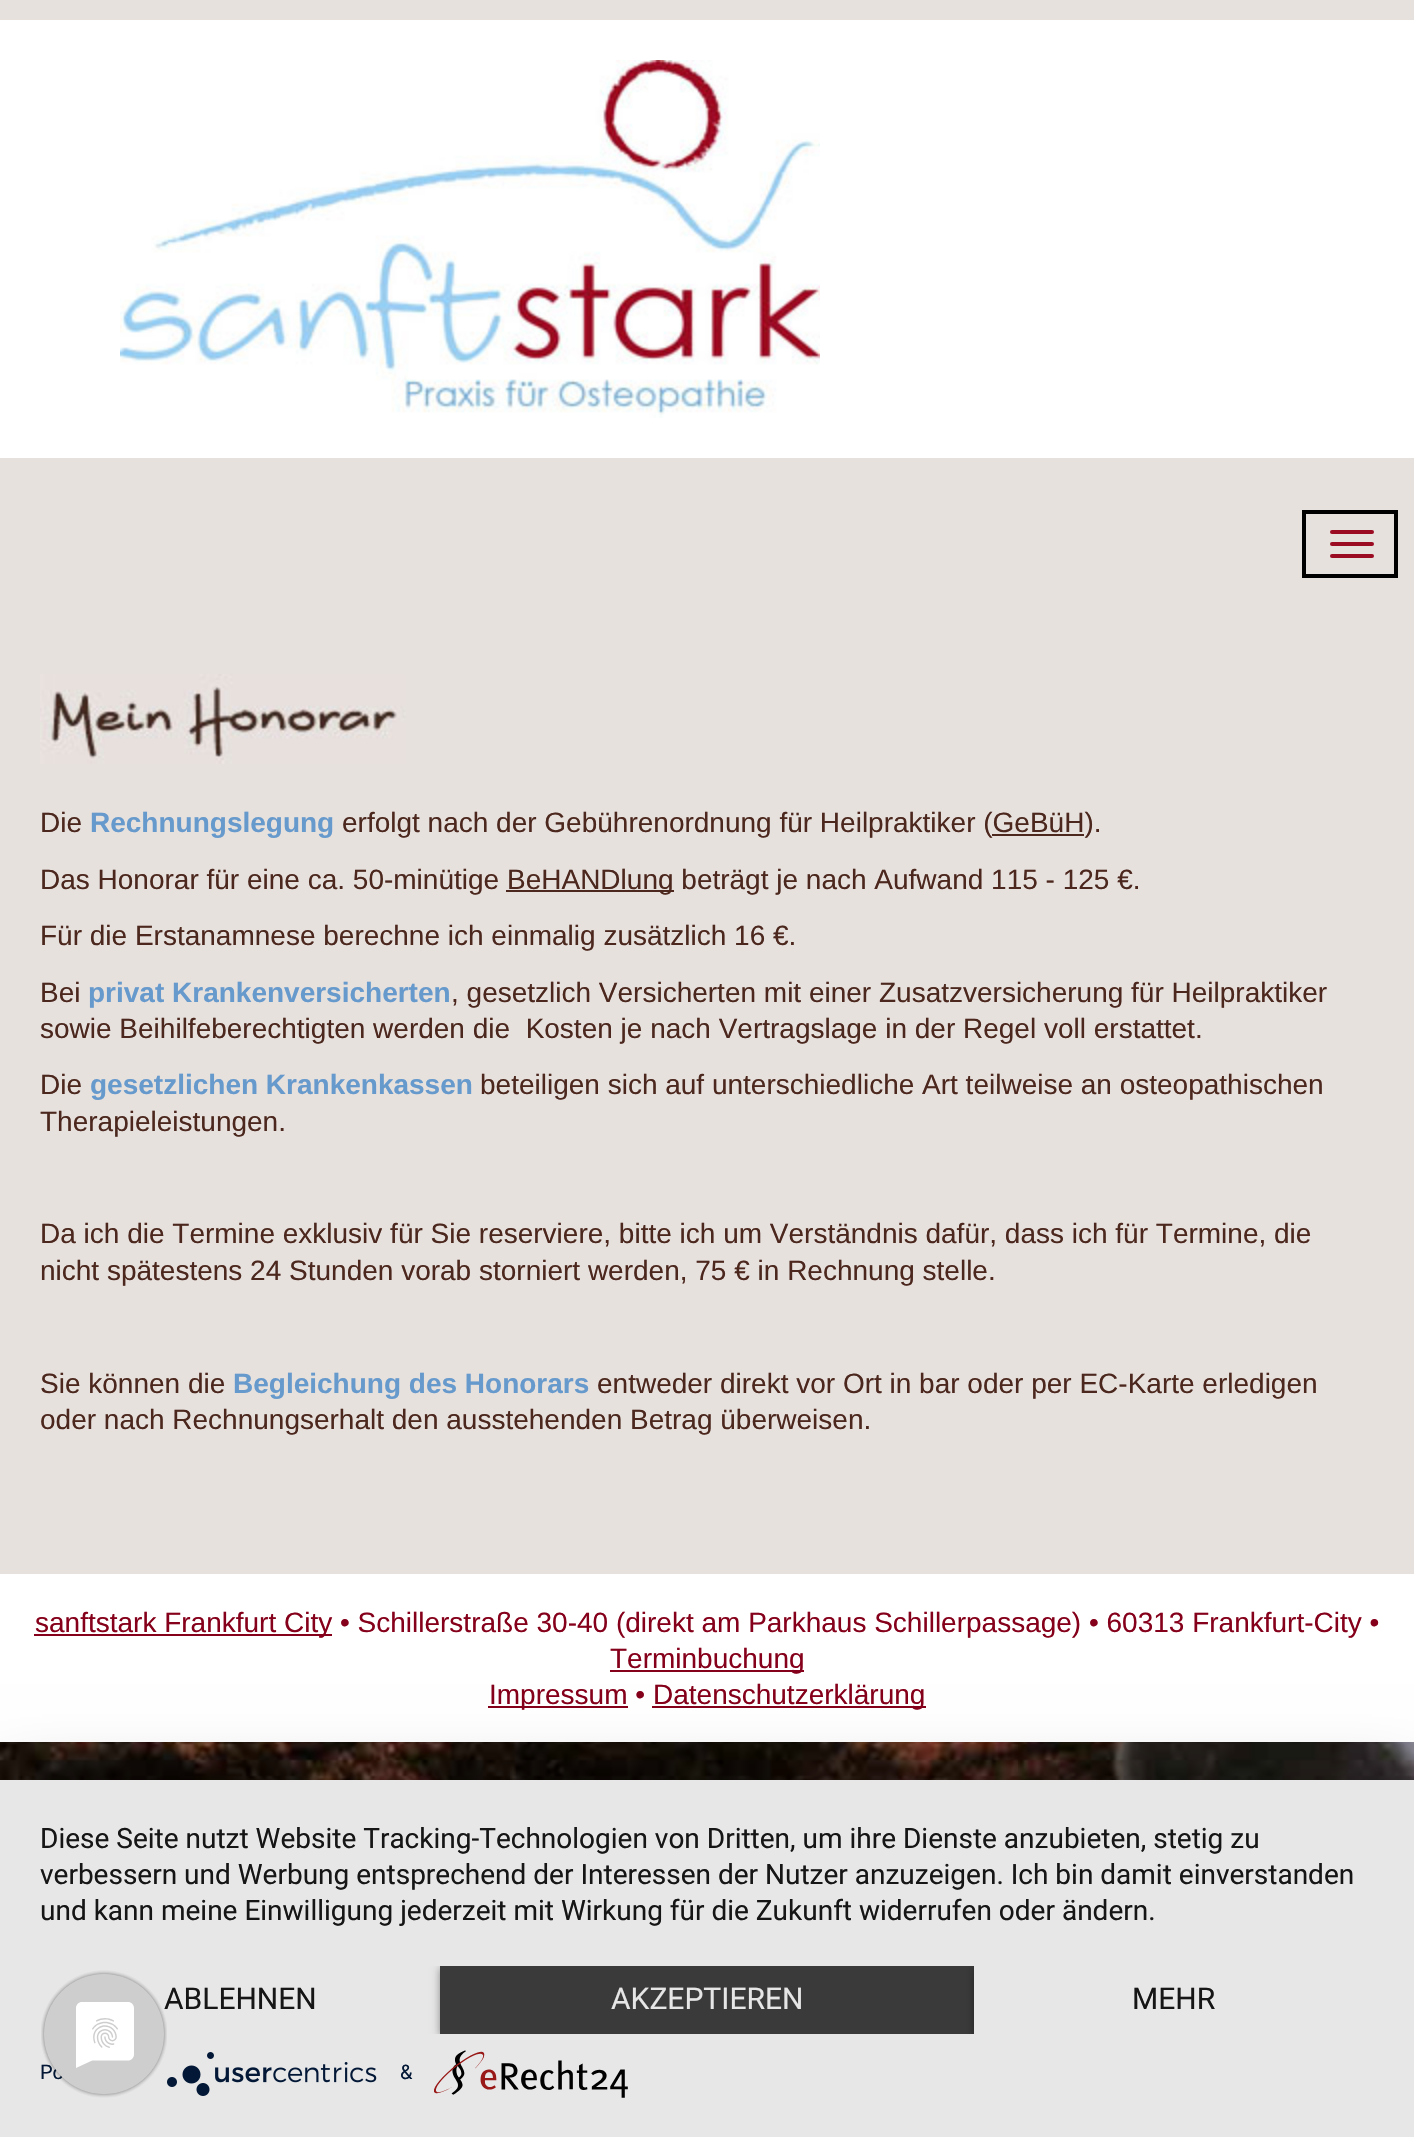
void draw(SkCanvas* canvas) {
	SkPaint paint;
	paint.setAntiAlias(true);
	canvas->clear(0xffffffff);
	canvas->drawImageRect(SkImages::DeferredFromEncodedData(SkData::MakeFromFileName("img1.png")), SkRect::MakeXYWH(0, 1742, 1414, 38), SkSamplingOptions());
	paint.setColor(0xffe7e1de);
	canvas->drawRect(SkRect::MakeXYWH(0, 0, 1414, 20), paint);
	canvas->drawImageRect(SkImages::DeferredFromEncodedData(SkData::MakeFromFileName("img2.png")), SkRect::MakeXYWH(120, 60, 700, 358), SkSamplingOptions());
	canvas->drawRect(SkRect::MakeXYWH(0, 458, 1414, 1116), paint);
	paint.setStroke(true);
	paint.setStrokeWidth(4);
	paint.setColor(0xff000000);
	canvas->drawRect(SkRect::MakeXYWH(1304, 512, 92, 64), paint);
	paint.setStroke(false);
	paint.setColor(0xff9b0c22);
	canvas->drawRoundRect(SkRect::MakeXYWH(1330, 530, 44, 4), 2, 2, paint);
	canvas->drawRoundRect(SkRect::MakeXYWH(1330, 542, 44, 4), 2, 2, paint);
	canvas->drawRoundRect(SkRect::MakeXYWH(1330, 554, 44, 4), 2, 2, paint);
	canvas->drawImageRect(SkImages::DeferredFromEncodedData(SkData::MakeFromFileName("img3.png")), SkRect::MakeXYWH(40, 674, 366, 90), SkSamplingOptions());
	SkFont f1(fontMgr->matchFamilyStyle("Liberation Sans", SkFontStyle::Normal()), 28);
	f1.setSubpixel(true);
	paint.setColor(0xff4b271d);
	canvas->drawString("Die", 40, 832, f1, paint);
	SkFont f2(fontMgr->matchFamilyStyle("Liberation Sans", SkFontStyle::Bold()), 28);
	f2.setSubpixel(true);
	paint.setColor(0xff6699cc);
	canvas->drawString("Rechnungslegung", 90, 832, f2, paint);
	paint.setColor(0xff4b271d);
	canvas->drawString("erfolgt nach der Gebührenordnung für Heilpraktiker (GeBüH).", 342, 832, f1, paint);
	canvas->drawRect(SkRect::MakeXYWH(992, 834, 92, 2), paint);
	canvas->drawString("Das Honorar für eine ca. 50-minütige", 40, 889, f1, paint);
	canvas->drawRect(SkRect::MakeXYWH(506, 890, 168, 2), paint);
	canvas->drawString("BeHANDlung beträgt je nach Aufwand 115 - 125 €.", 507, 889, f1, paint);
	canvas->drawString("Für die Erstanamnese berechne ich einmalig zusätzlich 16 €.", 40, 945, f1, paint);
	canvas->drawString("Bei", 40, 1002, f1, paint);
	paint.setColor(0xff6699cc);
	canvas->drawString("privat Krankenversicherten", 88, 1002, f2, paint);
	paint.setColor(0xff4b271d);
	canvas->drawString(", gesetzlich Versicherten mit einer Zusatzversicherung für Heilpraktiker", 451, 1002, f1, paint);
	canvas->drawString("sowie Beihilfeberechtigten werden die  Kosten je nach Vertragslage in der Regel voll erstattet.", 40, 1038, f1, paint);
	canvas->drawString("Die", 40, 1094, f1, paint);
	paint.setColor(0xff6699cc);
	canvas->drawString("gesetzlichen Krankenkassen", 90, 1094, f2, paint);
	paint.setColor(0xff4b271d);
	canvas->drawString("beteiligen sich auf unterschiedliche Art teilweise an osteopathischen", 480, 1094, f1, paint);
	canvas->drawString("Therapieleistungen.", 40, 1131, f1, paint);
	canvas->drawString("Da ich die Termine exklusiv für Sie reserviere, bitte ich um Verständnis dafür, dass ich für Termine, die", 40, 1243, f1, paint);
	canvas->drawString("nicht spätestens 24 Stunden vorab storniert werden, 75 € in Rechnung stelle.", 40, 1280, f1, paint);
	canvas->drawString("Sie können die", 40, 1393, f1, paint);
	paint.setColor(0xff6699cc);
	canvas->drawString("Begleichung des Honorars", 233, 1393, f2, paint);
	paint.setColor(0xff4b271d);
	canvas->drawString("entweder direkt vor Ort in bar oder per EC-Karte erledigen", 597, 1393, f1, paint);
	canvas->drawString("oder nach Rechnungserhalt den ausstehenden Betrag überweisen.", 40, 1429, f1, paint);
	paint.setColor(0xff85001a);
	canvas->drawRect(SkRect::MakeXYWH(34, 1634, 298, 2), paint);
	canvas->drawString("sanftstark Frankfurt City • Schillerstraße 30-40 (direkt am Parkhaus Schillerpassage) • 60313 Frankfurt-City •", 35, 1632, f1, paint);
	canvas->drawRect(SkRect::MakeXYWH(610, 1670, 194, 2), paint);
	canvas->drawString("Terminbuchung", 610, 1668, f1, paint);
	canvas->drawRect(SkRect::MakeXYWH(488, 1706, 140, 2), paint);
	canvas->drawString("Impressum •", 489, 1704, f1, paint);
	canvas->drawRect(SkRect::MakeXYWH(652, 1706, 274, 2), paint);
	canvas->drawString("Datenschutzerklärung", 653, 1704, f1, paint);
	paint.setColor(0x4d000000);
	paint.setMaskFilter(SkMaskFilter::MakeBlur(kNormal_SkBlurStyle, 36));
	canvas->drawRect(SkRect::MakeXYWH(0, 1792, 1414, 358), paint);
	paint.setMaskFilter(nullptr);
	paint.setColor(0xffe7e7e7);
	canvas->drawRect(SkRect::MakeXYWH(0, 1780, 1414, 357), paint);
	SkFont f3(fontMgr->matchFamilyStyle("Roboto", SkFontStyle::Normal()), 28);
	f3.setSubpixel(true);
	paint.setColor(0xff161616);
	canvas->drawString("Diese Seite nutzt Website Tracking-Technologien von Dritten, um ihre Dienste anzubieten, stetig zu", 40, 1848, f3, paint);
	canvas->drawString("verbessern und Werbung entsprechend der Interessen der Nutzer anzuzeigen. Ich bin damit einverstanden", 40, 1884, f3, paint);
	canvas->drawString("und kann meine Einwilligung jederzeit mit Wirkung für die Zukunft widerrufen oder ändern.", 40, 1920, f3, paint);
	SkFont f4(fontMgr->matchFamilyStyle("Roboto", SkFontStyle::Normal()), 30);
	f4.setSubpixel(true);
	canvas->drawString("ABLEHNEN", 164, 2009, f4, paint);
	canvas->save();
	canvas->clipRect(SkRect::MakeXYWH(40, 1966, 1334, 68));
	paint.setColor(0x66000000);
	paint.setMaskFilter(SkMaskFilter::MakeBlur(kNormal_SkBlurStyle, 4));
	canvas->drawRect(SkRect::MakeXYWH(440, 1968, 534, 68), paint);
	paint.setMaskFilter(nullptr);
	canvas->restore();
	paint.setColor(0xff3a3a3a);
	canvas->drawRect(SkRect::MakeXYWH(440, 1966, 534, 68), paint);
	paint.setColor(0xffe6e6e6);
	canvas->drawString("AKZEPTIEREN", 611, 2009, f4, paint);
	canvas->save();
	canvas->clipRect(SkRect::MakeXYWH(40, 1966, 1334, 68));
	paint.setColor(0x66000000);
	paint.setMaskFilter(SkMaskFilter::MakeBlur(kNormal_SkBlurStyle, 4));
	canvas->drawRect(SkRect::MakeXYWH(974, 1968, 400, 68), paint);
	paint.setMaskFilter(nullptr);
	canvas->restore();
	paint.setColor(0xffe7e7e7);
	canvas->drawRect(SkRect::MakeXYWH(974, 1966, 400, 68), paint);
	paint.setColor(0xff161616);
	canvas->drawString("MEHR", 1132, 2009, f4, paint);
	SkFont f5(fontMgr->matchFamilyStyle("Roboto", SkFontStyle::Normal()), 20);
	f5.setSubpixel(true);
	paint.setColor(0xff021836);
	canvas->drawString("Po", 40, 2079, f5, paint);
	canvas->drawImageRect(SkImages::DeferredFromEncodedData(SkData::MakeFromFileName("img4.png")), SkRect::MakeXYWH(167, 2052, 210, 44), SkSamplingOptions());
	canvas->drawString("&", 400, 2079, f5, paint);
	canvas->drawImageRect(SkImages::DeferredFromEncodedData(SkData::MakeFromFileName("img5.png")), SkRect::MakeXYWH(434, 2050, 194, 48), SkSamplingOptions());
	canvas->drawImageRect(SkImages::DeferredFromEncodedData(SkData::MakeFromFileName("img6.png")), SkRect::MakeXYWH(41, 1970, 126, 128), SkSamplingOptions());
}
